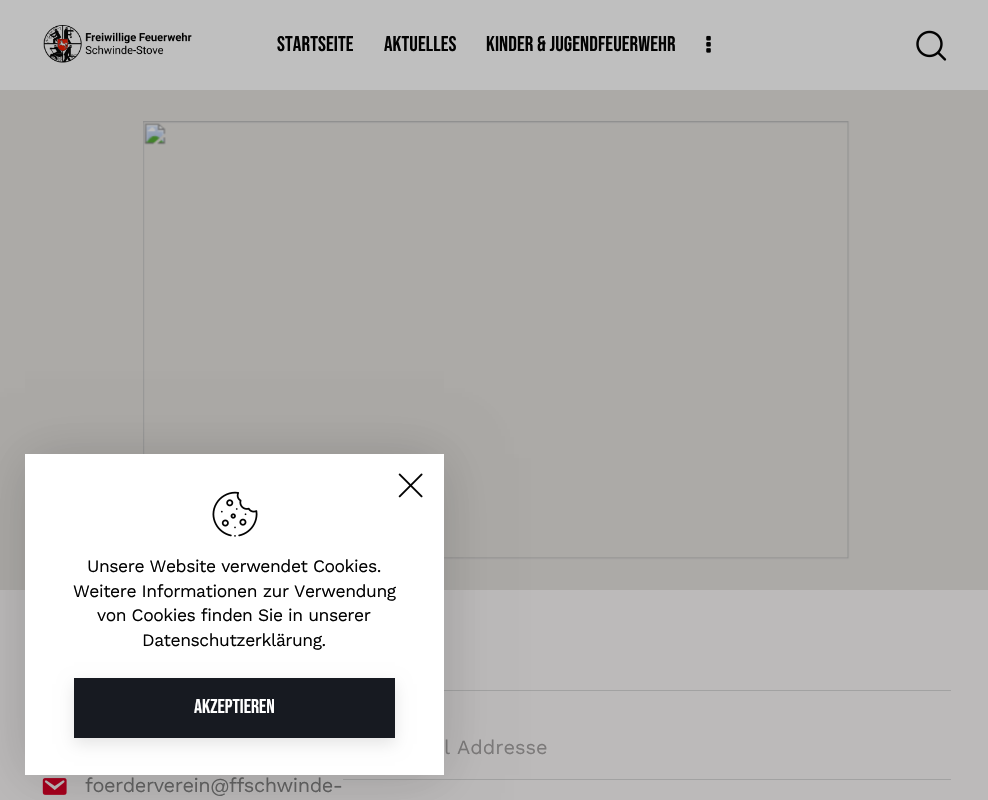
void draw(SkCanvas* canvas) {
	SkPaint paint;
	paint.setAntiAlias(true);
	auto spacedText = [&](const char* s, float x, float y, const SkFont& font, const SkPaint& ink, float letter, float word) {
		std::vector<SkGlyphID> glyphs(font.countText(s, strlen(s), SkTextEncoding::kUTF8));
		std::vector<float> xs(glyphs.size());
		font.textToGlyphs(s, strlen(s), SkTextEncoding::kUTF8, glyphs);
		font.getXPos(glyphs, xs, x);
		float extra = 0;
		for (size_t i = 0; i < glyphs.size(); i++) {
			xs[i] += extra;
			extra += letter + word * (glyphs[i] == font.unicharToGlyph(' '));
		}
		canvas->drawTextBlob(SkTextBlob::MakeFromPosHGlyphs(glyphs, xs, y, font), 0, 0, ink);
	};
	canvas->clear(0xffbcbaba);
	paint.setColor(0xffbfbfbf);
	canvas->drawRect(SkRect::MakeXYWH(0, 0, 988, 90), paint);
	canvas->drawImageRect(SkImages::DeferredFromEncodedData(SkData::MakeFromFileName("img1.png")), SkRect::MakeXYWH(43, 25, 149, 38), SkSamplingOptions());
	SkFont f1(fontMgr->matchFamilyStyle("Bebas Neue", SkFontStyle::Normal()), 21.25);
	f1.setSubpixel(true);
	paint.setColor(0xff020202);
	spacedText("Startseite", 277, 51, f1, paint, 0.1, 0);
	spacedText("Aktuelles", 384, 51, f1, paint, 0.1, 0);
	spacedText("Kinder & Jugendfeuerwehr", 486, 51, f1, paint, 0.1, 0);
	canvas->drawImageRect(SkImages::DeferredFromEncodedData(SkData::MakeFromFileName("img2.png")), SkRect::MakeXYWH(706, 35, 5, 18), SkSamplingOptions());
	canvas->drawImageRect(SkImages::DeferredFromEncodedData(SkData::MakeFromFileName("img3.png")), SkRect::MakeXYWH(916, 30, 31, 31), SkSamplingOptions());
	canvas->drawImageRect(SkImages::DeferredFromEncodedData(SkData::MakeFromFileName("img4.png")), SkRect::MakeXYWH(0, 90, 988, 500), SkSamplingOptions());
	paint.setColor(0xffa2a2a2);
	canvas->drawRect(SkRect::MakeXYWH(444, 690, 507, 1), paint);
	SkFont f2(fontMgr->matchFamilyStyle("Work Sans", SkFontStyle::Normal()), 20);
	f2.setSubpixel(true);
	paint.setColor(0xff7c7a7a);
	canvas->drawString("l Addresse", 444, 754, f2, paint);
	paint.setColor(0xffa2a2a2);
	canvas->drawRect(SkRect::MakeXYWH(343, 779, 608, 1), paint);
	canvas->drawImageRect(SkImages::DeferredFromEncodedData(SkData::MakeFromFileName("img5.png")), SkRect::MakeXYWH(42, 778, 25, 17), SkSamplingOptions());
	paint.setColor(0xff636363);
	spacedText("foerderverein@ffschwinde-", 85, 792, f2, paint, -0.45, 0);
	paint.setColor(0x1a000000);
	paint.setMaskFilter(SkMaskFilter::MakeBlur(kNormal_SkBlurStyle, 29));
	canvas->drawRect(SkRect::MakeXYWH(25, 458, 419, 321), paint);
	paint.setMaskFilter(nullptr);
	paint.setColor(0x12000000);
	paint.setMaskFilter(SkMaskFilter::MakeBlur(kNormal_SkBlurStyle, 25));
	canvas->drawRect(SkRect::MakeXYWH(25, 454, 419, 321), paint);
	paint.setMaskFilter(nullptr);
	paint.setColor(0xffffffff);
	canvas->drawRect(SkRect::MakeXYWH(25, 454, 419, 321), paint);
	canvas->drawImageRect(SkImages::DeferredFromEncodedData(SkData::MakeFromFileName("img6.png")), SkRect::MakeXYWH(398, 473, 25, 25), SkSamplingOptions());
	canvas->drawImageRect(SkImages::DeferredFromEncodedData(SkData::MakeFromFileName("img7.png")), SkRect::MakeXYWH(212, 491, 46, 46), SkSamplingOptions());
	SkFont f3(fontMgr->matchFamilyStyle("Work Sans", SkFontStyle::Normal()), 17.5);
	f3.setSubpixel(true);
	paint.setColor(0xff020202);
	spacedText("Unsere Website verwendet Cookies.", 87, 572, f3, paint, -0.45, 0);
	spacedText("Weitere Informationen zur Verwendung", 73, 597, f3, paint, -0.45, 0);
	spacedText("von Cookies finden Sie in unserer", 97, 621, f3, paint, -0.45, 0);
	spacedText("Datenschutzerklärung.", 142, 646, f3, paint, -0.45, 0);
	paint.setColor(0x1a000000);
	paint.setMaskFilter(SkMaskFilter::MakeBlur(kNormal_SkBlurStyle, 7.5));
	canvas->drawRect(SkRect::MakeXYWH(74, 684, 321, 60), paint);
	paint.setMaskFilter(nullptr);
	paint.setColor(0xff171a21);
	canvas->drawRect(SkRect::MakeXYWH(74, 678, 321, 60), paint);
	SkFont f4(fontMgr->matchFamilyStyle("Bebas Neue", SkFontStyle::Normal()), 20);
	f4.setSubpixel(true);
	paint.setColor(0xffffffff);
	canvas->drawString("AKZEPTIEREN", 194, 713, f4, paint);
}
